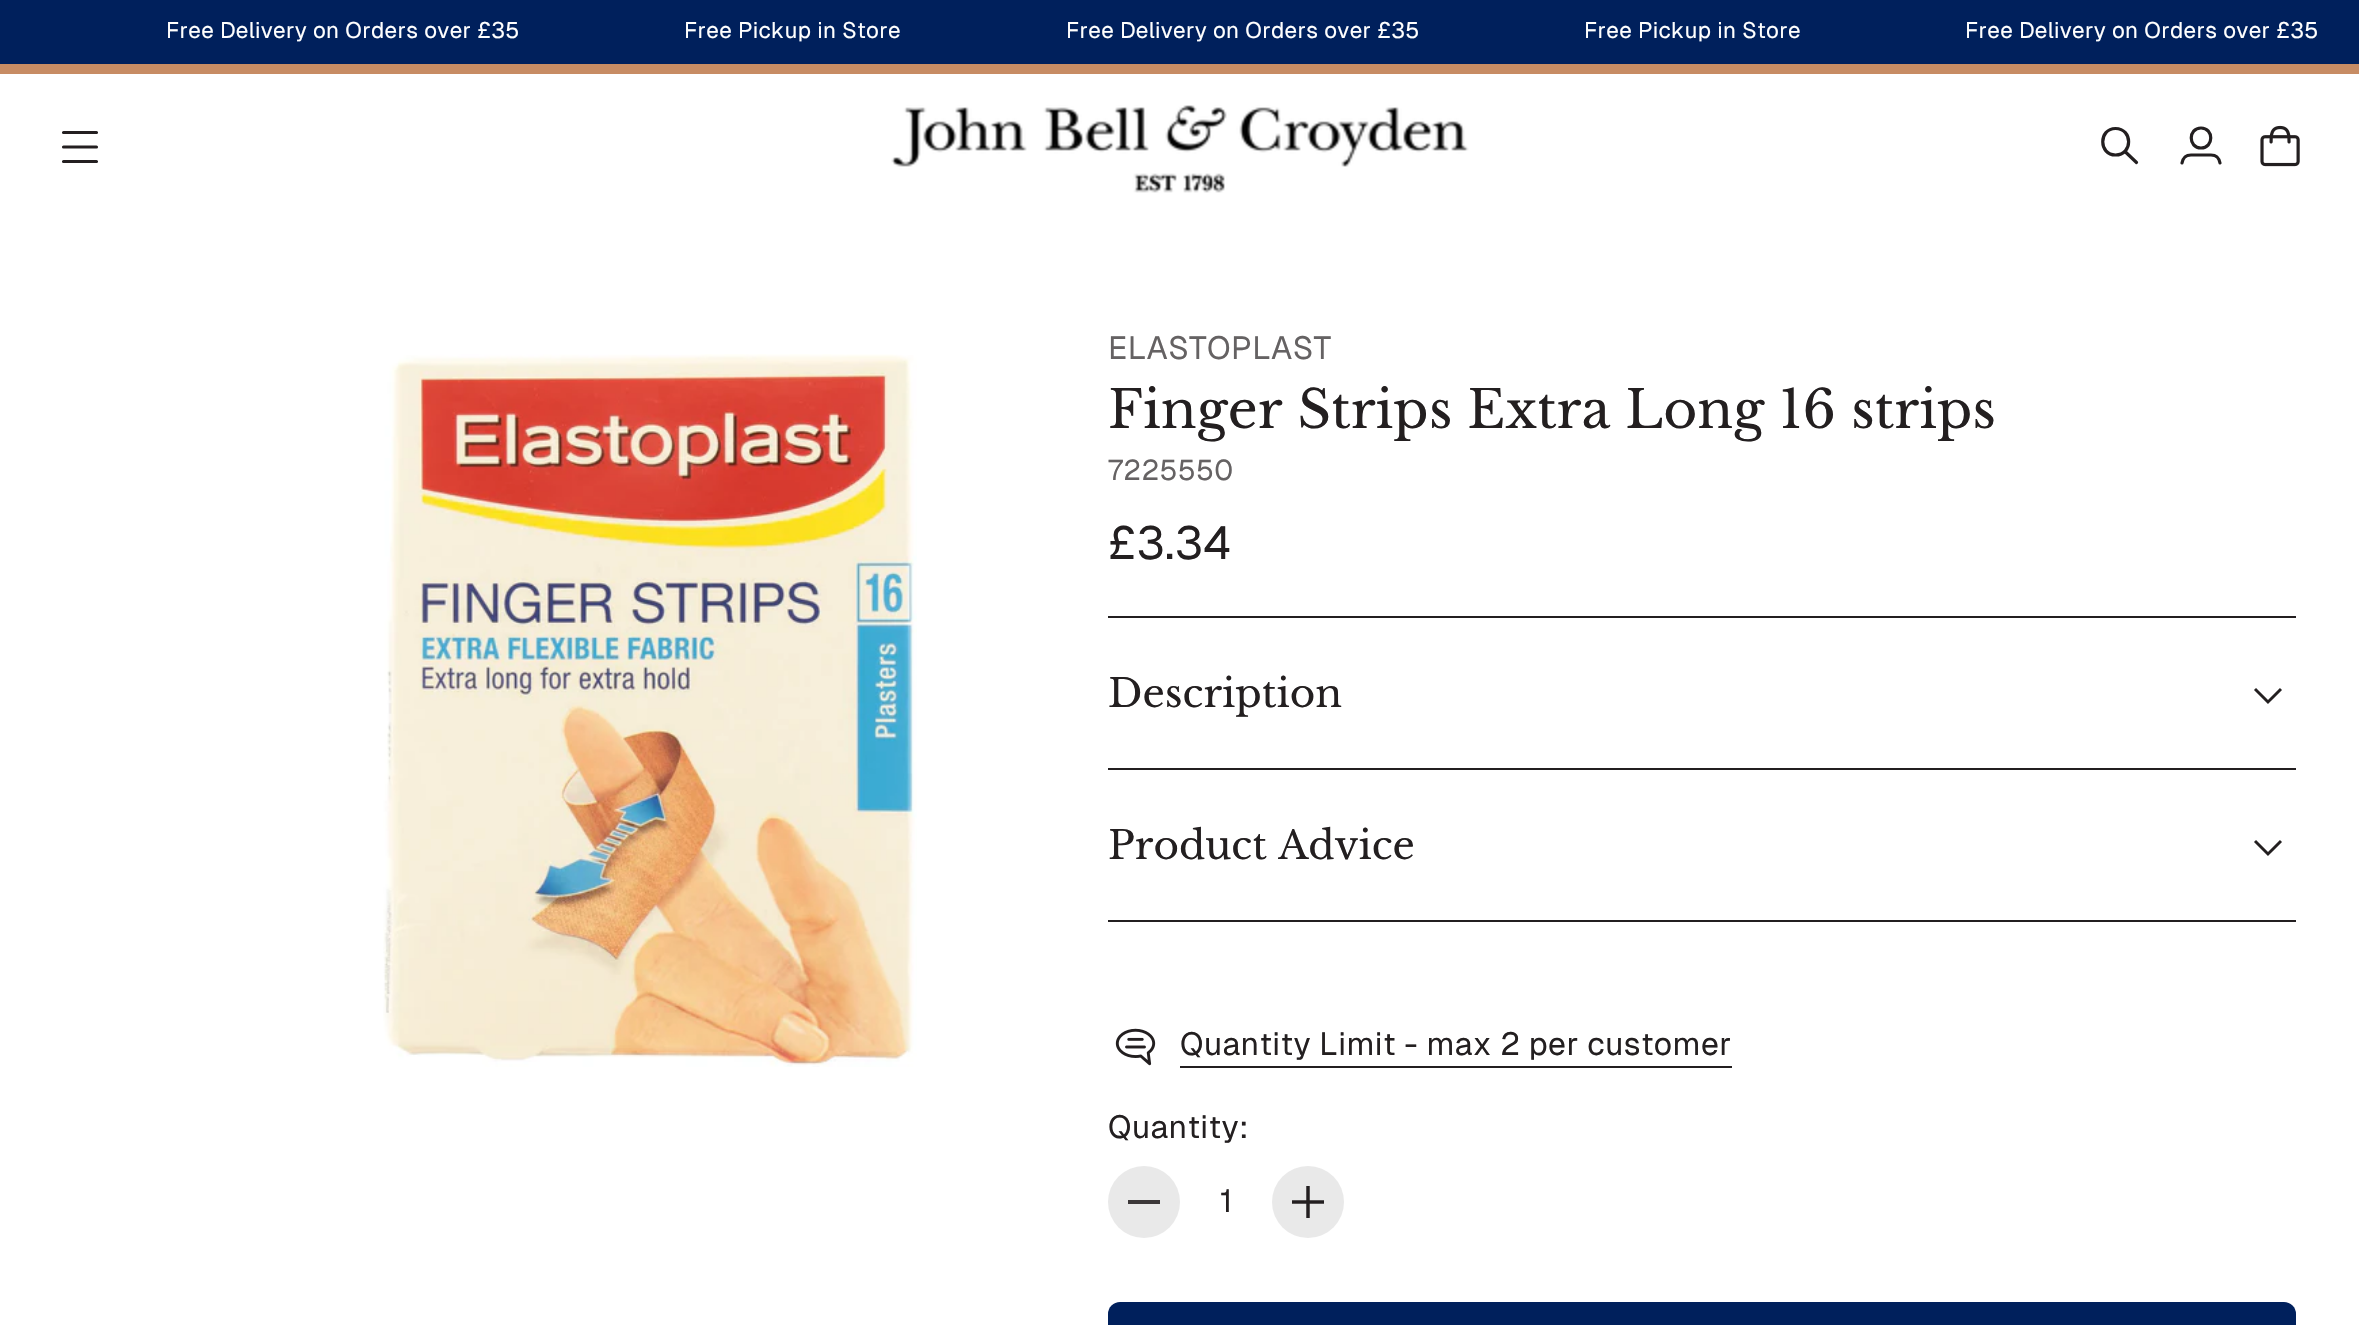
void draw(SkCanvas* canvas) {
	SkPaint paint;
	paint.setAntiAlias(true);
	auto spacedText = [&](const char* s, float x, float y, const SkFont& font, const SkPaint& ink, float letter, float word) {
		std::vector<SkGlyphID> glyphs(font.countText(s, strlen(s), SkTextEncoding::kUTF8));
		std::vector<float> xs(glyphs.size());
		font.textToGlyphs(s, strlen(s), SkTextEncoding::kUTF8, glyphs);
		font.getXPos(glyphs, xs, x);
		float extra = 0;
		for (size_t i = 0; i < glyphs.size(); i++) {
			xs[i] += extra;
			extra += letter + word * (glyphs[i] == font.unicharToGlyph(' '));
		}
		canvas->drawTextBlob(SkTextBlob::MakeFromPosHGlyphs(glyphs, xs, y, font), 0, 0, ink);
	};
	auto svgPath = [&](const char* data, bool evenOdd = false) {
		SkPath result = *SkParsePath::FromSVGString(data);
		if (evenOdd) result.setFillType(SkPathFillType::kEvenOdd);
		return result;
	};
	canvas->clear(0xffffffff);
	paint.setColor(0xff00205c);
	canvas->drawRect(SkRect::MakeXYWH(0, 0, 2359, 64), paint);
	SkFont f1(fontMgr->matchFamilyStyle("Geist", SkFontStyle::Normal()), 22.4);
	f1.setSubpixel(true);
	paint.setColor(0xffffffff);
	spacedText("Free Delivery on Orders over £35", 166, 38, f1, paint, 0.3, 0);
	spacedText("Free Pickup in Store", 684, 38, f1, paint, 0.3, 0);
	spacedText("Free Delivery on Orders over £35", 1066, 38, f1, paint, 0.3, 0);
	spacedText("Free Pickup in Store", 1584, 38, f1, paint, 0.3, 0);
	spacedText("Free Delivery on Orders over £35", 1965, 38, f1, paint, 0.3, 0);
	paint.setColor(0xffc78c64);
	canvas->drawRect(SkRect::MakeXYWH(0, 64, 2359, 10), paint);
	paint.setStroke(true);
	paint.setStrokeWidth(3.1);
	paint.setStrokeCap(SkPaint::kRound_Cap);
	paint.setStrokeJoin(SkPaint::kRound_Join);
	paint.setColor(0xff231f20);
	canvas->drawPath(svgPath("M63.5 147H96.5M63.5 161.5H96.5M63.5 132.5H96.5"), paint);
	canvas->drawImageRect(SkImages::DeferredFromEncodedData(SkData::MakeFromFileName("img1.png")), SkRect::MakeXYWH(891, 105, 578, 88), SkSamplingOptions());
	paint.setStrokeWidth(3.2);
	canvas->drawPath(svgPath("M2115.5 155C2133 155 2133 128.5 2115.5 128.5C2098.5 128.5 2098.5 155 2115.5 155ZM2125.5 152L2136.5 162.5"), paint);
	canvas->drawPath(svgPath("M2220 163C2219 158 2217 155 2211 155H2191C2185 155 2183 158 2182 163M2201 148C2214 148 2214 128 2201 128C2188 128 2188 148 2201 148Z"), paint);
	canvas->drawImageRect(SkImages::DeferredFromEncodedData(SkData::MakeFromFileName("img2.png")), SkRect::MakeXYWH(2260, 125, 40, 42), SkSamplingOptions());
	canvas->drawImageRect(SkImages::DeferredFromEncodedData(SkData::MakeFromFileName("img3.png")), SkRect::MakeXYWH(383, 354, 534, 713), SkSamplingOptions());
	SkFont f2(fontMgr->matchFamilyStyle("Geist", SkFontStyle::Normal()), 31.9);
	f2.setSubpixel(true);
	paint.setStroke(false);
	paint.setColor(0xff656263);
	spacedText("ELASTOPLAST", 1108, 359, f2, paint, 0.4, 0);
	SkFont f3(fontMgr->matchFamilyStyle("Libre Baskerville", SkFontStyle::Normal()), 52.1);
	f3.setSubpixel(true);
	paint.setColor(0xff231f20);
	canvas->drawString("Finger Strips Extra Long 16 strips", 1108, 428, f3, paint);
	SkFont f4(fontMgr->matchFamilyStyle("Geist", SkFontStyle::Normal()), 28.5);
	f4.setSubpixel(true);
	paint.setColor(0xff656263);
	spacedText("7225550", 1108, 480, f4, paint, 0.4, 0);
	SkFont f5(fontMgr->matchFamilyStyle("Geist", SkFontStyle::Normal()), 46);
	f5.setSubpixel(true);
	paint.setColor(0xff231f20);
	spacedText("£3.34", 1108, 559, f5, paint, 0.4, 0);
	canvas->drawRect(SkRect::MakeXYWH(1108, 616, 1188, 2), paint);
	canvas->drawRect(SkRect::MakeXYWH(1108, 768, 1188, 2), paint);
	SkFont f6(fontMgr->matchFamilyStyle("Libre Baskerville", SkFontStyle::Normal()), 39);
	f6.setSubpixel(true);
	canvas->drawString("Description", 1108, 707, f6, paint);
	paint.setStroke(true);
	paint.setStrokeWidth(2.9);
	paint.setStrokeCap(SkPaint::kButt_Cap);
	paint.setStrokeJoin(SkPaint::kMiter_Join);
	canvas->drawPath(svgPath("M2255 689L2268 702L2281 689"), paint);
	paint.setStroke(false);
	canvas->drawRect(SkRect::MakeXYWH(1108, 920, 1188, 2), paint);
	canvas->drawString("Product Advice", 1108, 859, f6, paint);
	paint.setStroke(true);
	canvas->drawPath(svgPath("M2255 841L2268 854L2281 841"), paint);
	canvas->drawImageRect(SkImages::DeferredFromEncodedData(SkData::MakeFromFileName("img4.png")), SkRect::MakeXYWH(1115, 1028, 41, 38), SkSamplingOptions());
	paint.setStroke(false);
	canvas->drawRect(SkRect::MakeXYWH(1180, 1066, 552, 2), paint);
	spacedText("Quantity Limit - max 2 per customer", 1180, 1055, f2, paint, 0.4, 0);
	spacedText("Quantity:", 1108, 1138, f2, paint, 0.4, 0);
	paint.setColor(0xffe9e9e9);
	canvas->drawCircle(1144, 1202, 36, paint);
	paint.setColor(0xff3c3839);
	canvas->drawRect(SkRect::MakeXYWH(1128, 1200, 32, 4), paint);
	paint.setColor(0xff231f20);
	canvas->drawString("1", 1220, 1212, f2, paint);
	paint.setColor(0xffe9e9e9);
	canvas->drawCircle(1308, 1202, 36, paint);
	canvas->drawImageRect(SkImages::DeferredFromEncodedData(SkData::MakeFromFileName("img5.png")), SkRect::MakeXYWH(1292, 1186, 32, 32), SkSamplingOptions());
	paint.setColor(0xff00205c);
	canvas->drawRoundRect(SkRect::MakeXYWH(1108, 1302, 1188, 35), 12, 12, paint);
}
